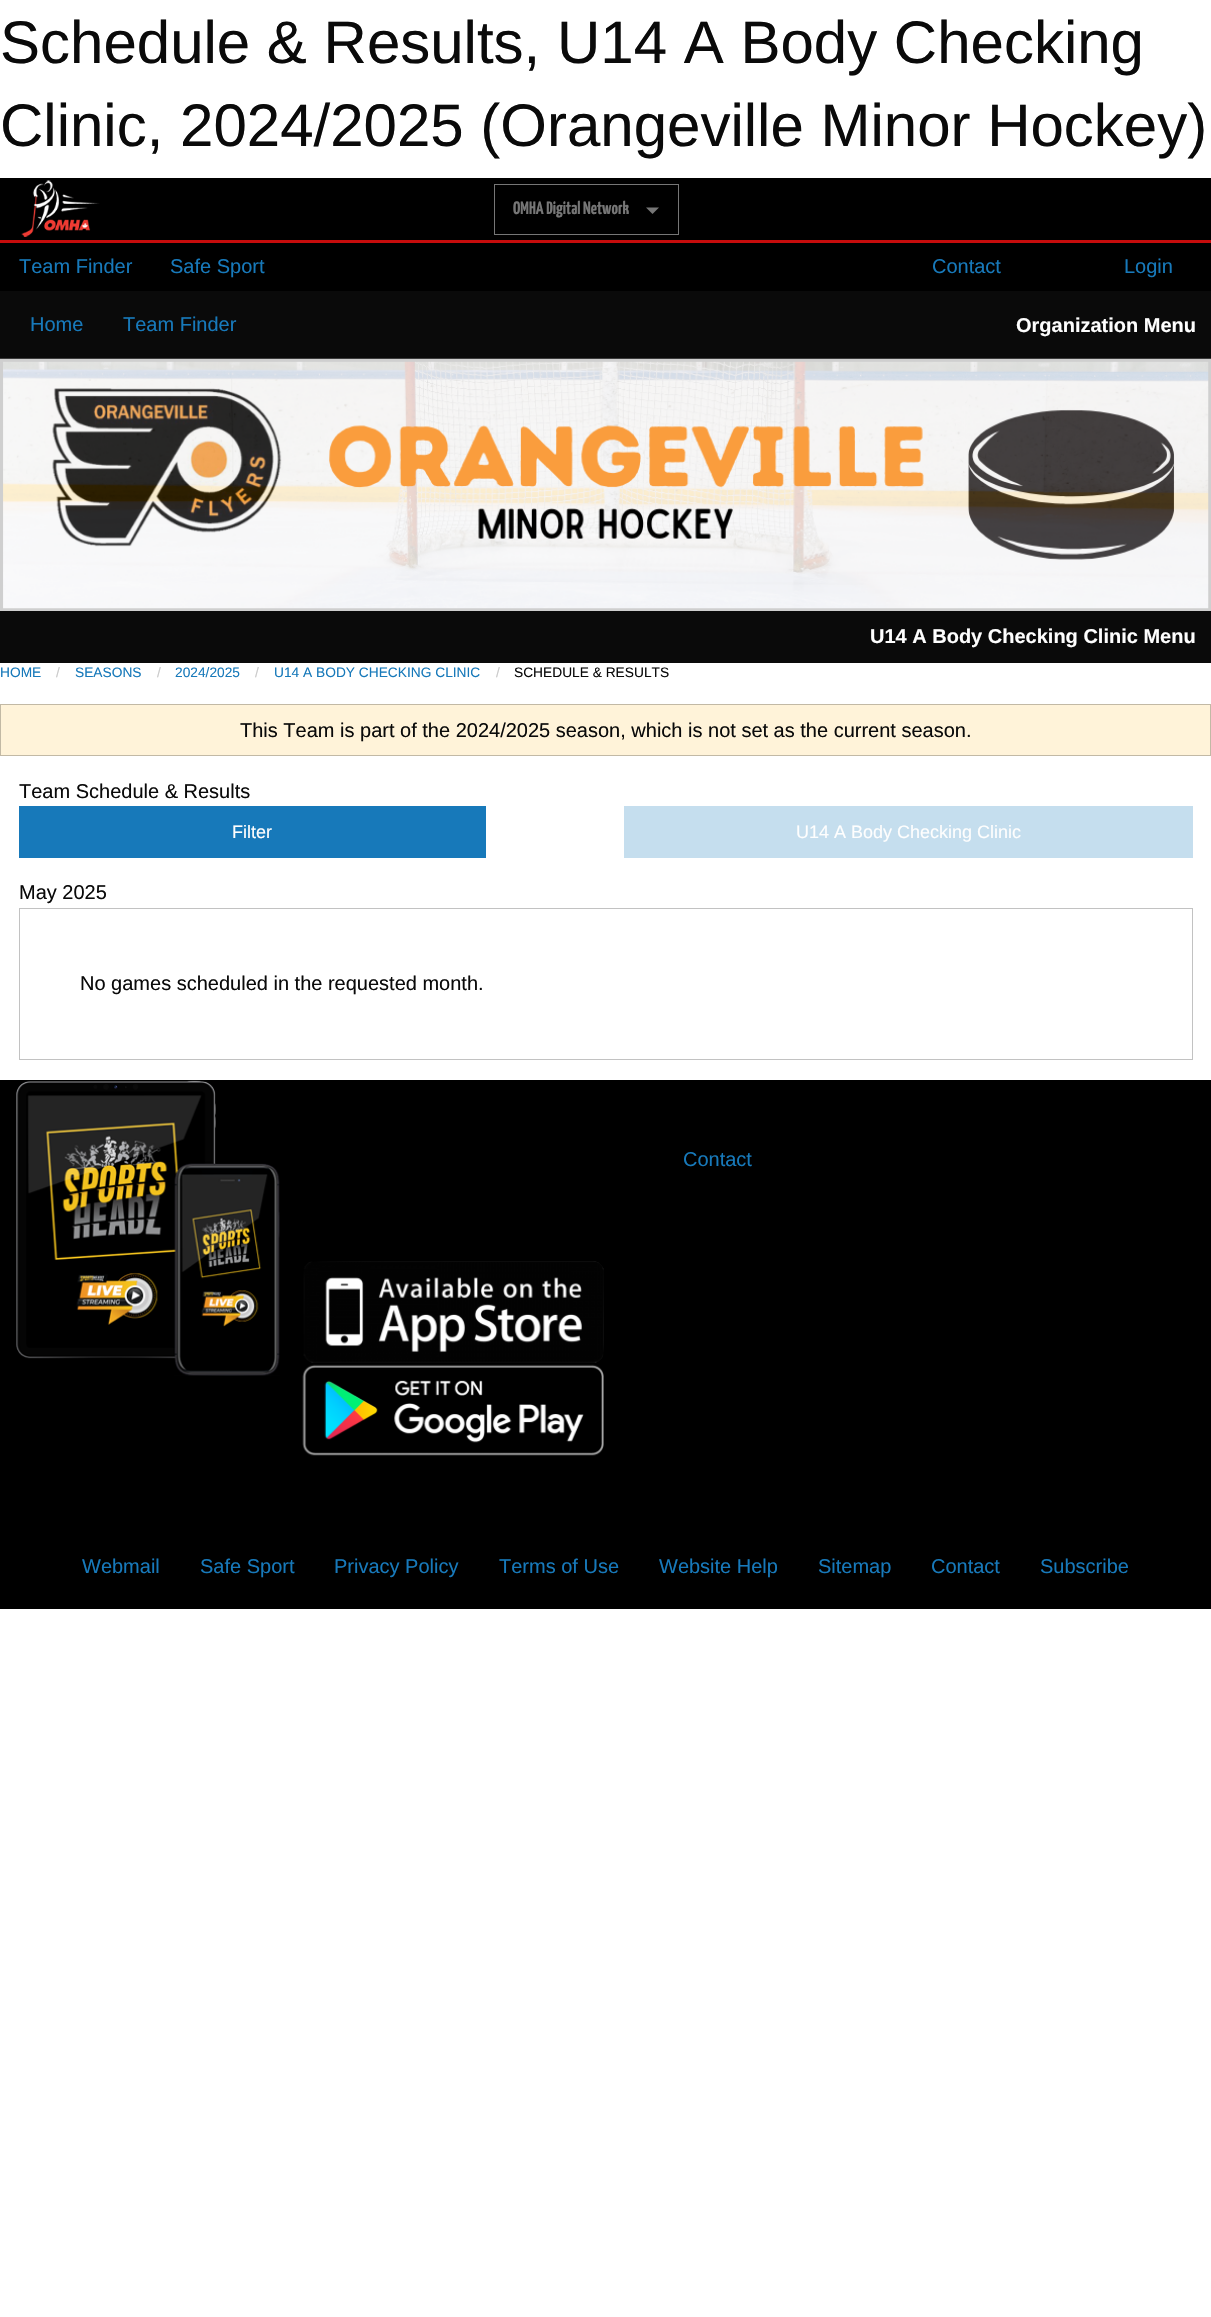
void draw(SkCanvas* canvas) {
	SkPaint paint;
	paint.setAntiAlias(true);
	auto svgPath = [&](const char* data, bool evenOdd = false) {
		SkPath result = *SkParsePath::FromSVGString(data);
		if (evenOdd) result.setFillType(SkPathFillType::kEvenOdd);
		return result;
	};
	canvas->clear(0xffffffff);
	SkFont f1(fontMgr->matchFamilyStyle("Liberation Sans", SkFontStyle::Normal()), 60);
	f1.setSubpixel(true);
	paint.setColor(0xff0a0a0a);
	canvas->drawString("Schedule & Results, U14 A Body Checking", 0, 63, f1, paint);
	canvas->drawString("Clinic, 2024/2025 (Orangeville Minor Hockey)", 0, 146, f1, paint);
	paint.setColor(0xff000000);
	canvas->drawRect(SkRect::MakeXYWH(0, 178, 1211, 62), paint);
	paint.setColor(0xffc60c0c);
	canvas->drawRect(SkRect::MakeXYWH(0, 240, 1211, 3), paint);
	canvas->drawImageRect(SkImages::DeferredFromEncodedData(SkData::MakeFromFileName("img1.png")), SkRect::MakeXYWH(21, 180, 79, 57), SkSamplingOptions());
	paint.setStroke(true);
	paint.setStrokeWidth(1);
	paint.setColor(0xff767676);
	canvas->drawRect(SkRect::MakeXYWH(494.5, 184.5, 184, 50), paint);
	SkFont f2(fontMgr->matchFamilyStyle("Yanone Kaffeesatz", SkFontStyle(200, SkFontStyle::kNormal_Width, SkFontStyle::kUpright_Slant)), 18);
	f2.setSubpixel(true);
	paint.setStroke(false);
	canvas->drawString("OMHA Digital Network", 513, 214, f2, paint);
	canvas->drawPath(svgPath("M646 207.5H659L652.5 214Z"), paint);
	paint.setColor(0xff000000);
	canvas->drawRect(SkRect::MakeXYWH(0, 243, 1211, 1366), paint);
	SkFont f3(fontMgr->matchFamilyStyle("Liberation Sans", SkFontStyle::Normal()), 20);
	f3.setSubpixel(true);
	paint.setColor(0xff1779ba);
	canvas->drawString("Team Finder", 19, 273, f3, paint);
	canvas->drawString("Safe Sport", 170, 273, f3, paint);
	canvas->drawString("Contact", 932, 273, f3, paint);
	canvas->drawString("Login", 1124, 273, f3, paint);
	paint.setColor(0xff0a0a0a);
	canvas->drawRect(SkRect::MakeXYWH(0, 291, 1211, 68), paint);
	paint.setColor(0xff1779ba);
	canvas->drawString("Home", 30, 331, f3, paint);
	canvas->drawString("Team Finder", 123, 331, f3, paint);
	SkFont f4(fontMgr->matchFamilyStyle("Liberation Sans", SkFontStyle::Bold()), 20);
	f4.setSubpixel(true);
	paint.setColor(0xfffefefe);
	canvas->drawString("Organization Menu", 1016, 332, f4, paint);
	canvas->drawImageRect(SkImages::DeferredFromEncodedData(SkData::MakeFromFileName("img2.png")), SkRect::MakeXYWH(0, 358, 1211, 253), SkSamplingOptions());
	paint.setColor(0xff0a0a0a);
	canvas->drawRect(SkRect::MakeXYWH(0, 611, 1211, 52), paint);
	paint.setColor(0xfffefefe);
	canvas->drawString("U14 A Body Checking Clinic Menu", 870, 643, f4, paint);
	paint.setColor(0xffffffff);
	canvas->drawRect(SkRect::MakeXYWH(0, 663, 1211, 41), paint);
	SkFont f5(fontMgr->matchFamilyStyle("Liberation Sans", SkFontStyle::Normal()), 13.75);
	f5.setSubpixel(true);
	paint.setColor(0xff1779ba);
	canvas->drawString("HOME", 0, 677, f5, paint);
	paint.setColor(0xffcacaca);
	canvas->drawString("/", 56, 677, f5, paint);
	paint.setColor(0xff1779ba);
	canvas->drawString("SEASONS", 75, 677, f5, paint);
	paint.setColor(0xffcacaca);
	canvas->drawString("/", 157, 677, f5, paint);
	paint.setColor(0xff1779ba);
	canvas->drawString("2024/2025", 175, 677, f5, paint);
	paint.setColor(0xffcacaca);
	canvas->drawString("/", 255, 677, f5, paint);
	paint.setColor(0xff1779ba);
	canvas->drawString("U14 A BODY CHECKING CLINIC", 274, 677, f5, paint);
	paint.setColor(0xffcacaca);
	canvas->drawString("/", 496, 677, f5, paint);
	paint.setColor(0xff0a0a0a);
	canvas->drawString("SCHEDULE & RESULTS", 514, 677, f5, paint);
	paint.setColor(0xffffffff);
	canvas->drawRect(SkRect::MakeXYWH(0, 756, 1211, 324), paint);
	paint.setColor(0xfffff3d9);
	canvas->drawRect(SkRect::MakeXYWH(0.5, 704.5, 1210, 51), paint);
	paint.setStroke(true);
	paint.setColor(0xffc2b9a5);
	canvas->drawRect(SkRect::MakeXYWH(0.5, 704.5, 1210, 51), paint);
	paint.setStroke(false);
	paint.setColor(0xff0a0a0a);
	canvas->drawString("This Team is part of the 2024/2025 season, which is not set as the current season.", 240, 737, f3, paint);
	canvas->drawString("Team Schedule & Results", 19, 798, f3, paint);
	paint.setColor(0xff1779ba);
	canvas->drawRect(SkRect::MakeXYWH(19, 806, 467, 52), paint);
	SkFont f6(fontMgr->matchFamilyStyle("Liberation Sans", SkFontStyle::Normal()), 18);
	f6.setSubpixel(true);
	paint.setColor(0xfffefefe);
	canvas->drawString("Filter", 232, 838, f6, paint);
	paint.setColor(0xffc5deee);
	canvas->drawRect(SkRect::MakeXYWH(624, 806, 569, 52), paint);
	paint.setColor(0xfffefefe);
	canvas->drawString("U14 A Body Checking Clinic", 796, 838, f6, paint);
	paint.setColor(0xff0a0a0a);
	canvas->drawString("May 2025", 19, 899, f3, paint);
	paint.setStroke(true);
	paint.setColor(0xffc2c2c2);
	canvas->drawRect(SkRect::MakeXYWH(19.5, 908.5, 1173, 151), paint);
	paint.setStroke(false);
	paint.setColor(0xff0a0a0a);
	canvas->drawString("No games scheduled in the requested month.", 80, 990, f3, paint);
	canvas->drawImageRect(SkImages::DeferredFromEncodedData(SkData::MakeFromFileName("img3.png")), SkRect::MakeXYWH(16, 1080, 264, 296), SkSamplingOptions());
	canvas->drawImageRect(SkImages::DeferredFromEncodedData(SkData::MakeFromFileName("img4.png")), SkRect::MakeXYWH(303, 1261, 301, 102), SkSamplingOptions());
	canvas->drawImageRect(SkImages::DeferredFromEncodedData(SkData::MakeFromFileName("img5.png")), SkRect::MakeXYWH(302, 1364, 302, 92), SkSamplingOptions());
	paint.setColor(0xff1779ba);
	canvas->drawString("Contact", 683, 1166, f3, paint);
	canvas->drawString("Webmail", 82, 1573, f3, paint);
	canvas->drawString("Safe Sport", 200, 1573, f3, paint);
	canvas->drawString("Privacy Policy", 334, 1573, f3, paint);
	canvas->drawString("Terms of Use", 499, 1573, f3, paint);
	canvas->drawString("Website Help", 659, 1573, f3, paint);
	canvas->drawString("Sitemap", 818, 1573, f3, paint);
	canvas->drawString("Contact", 931, 1573, f3, paint);
	canvas->drawString("Subscribe", 1040, 1573, f3, paint);
}
